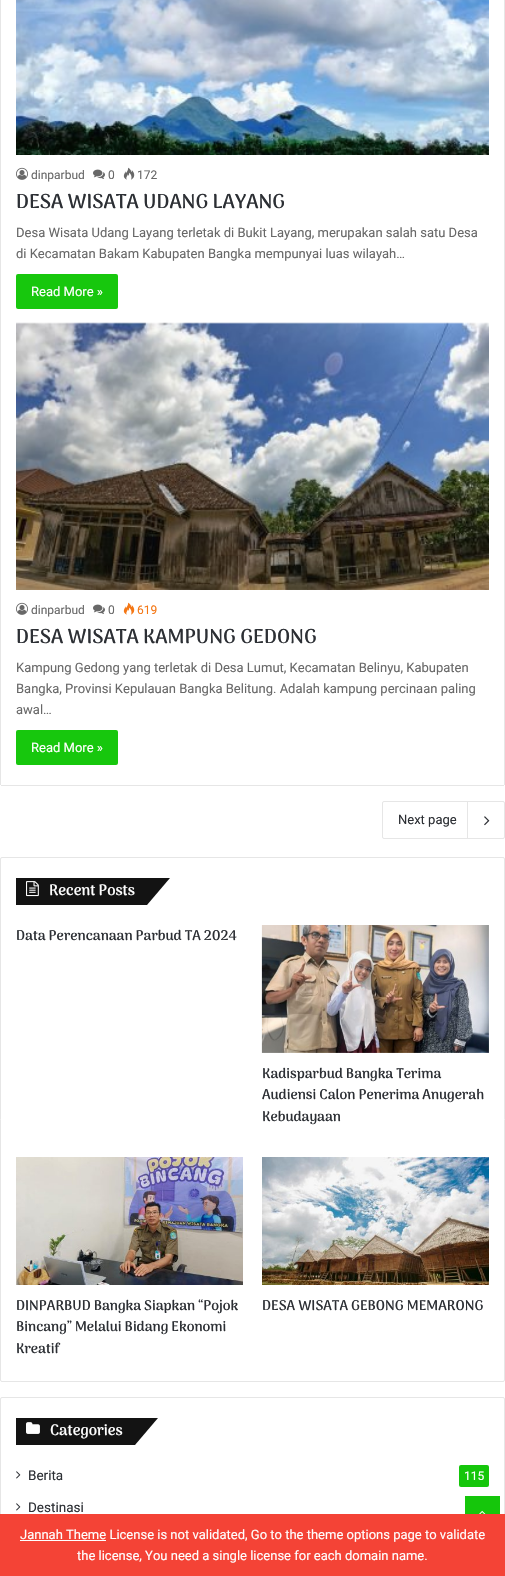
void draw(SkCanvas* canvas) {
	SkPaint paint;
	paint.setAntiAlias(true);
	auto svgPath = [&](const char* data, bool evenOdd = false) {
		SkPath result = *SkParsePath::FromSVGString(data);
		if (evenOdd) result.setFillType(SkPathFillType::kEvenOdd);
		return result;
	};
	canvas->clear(0xffffffff);
	paint.setColor(0xffe6e6e6);
	canvas->drawRect(SkRect::MakeXYWH(504, 0, 1, 785), paint);
	canvas->drawRect(SkRect::MakeXYWH(1, 785, 503, 1), paint);
	canvas->drawRect(SkRect::MakeXYWH(0, 0, 1, 785), paint);
	canvas->drawImageRect(SkImages::DeferredFromEncodedData(SkData::MakeFromFileName("img1.png")), SkRect::MakeXYWH(16, 0, 473, 155), SkSamplingOptions());
	canvas->drawImageRect(SkImages::DeferredFromEncodedData(SkData::MakeFromFileName("img2.png")), SkRect::MakeXYWH(16, 167, 12, 13), SkSamplingOptions());
	SkFont f1(fontMgr->matchFamilyStyle("Roboto", SkFontStyle::Normal()), 12);
	f1.setSubpixel(true);
	paint.setColor(0xff686868);
	canvas->drawString("dinparbud", 31, 179, f1, paint);
	canvas->drawImageRect(SkImages::DeferredFromEncodedData(SkData::MakeFromFileName("img3.png")), SkRect::MakeXYWH(93, 169, 12, 10), SkSamplingOptions());
	canvas->drawString("0", 108, 179, f1, paint);
	canvas->drawImageRect(SkImages::DeferredFromEncodedData(SkData::MakeFromFileName("img4.png")), SkRect::MakeXYWH(123, 167, 12, 13), SkSamplingOptions());
	canvas->drawString("172", 137, 179, f1, paint);
	SkFont f2(fontMgr->matchFamilyStyle("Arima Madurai", SkFontStyle::Bold()), 20);
	f2.setSubpixel(true);
	paint.setColor(0xff2c2f34);
	canvas->drawString("DESA WISATA UDANG LAYANG", 16, 208, f2, paint);
	SkFont f3(fontMgr->matchFamilyStyle("Roboto", SkFontStyle::Normal()), 13);
	f3.setSubpixel(true);
	paint.setColor(0xff686868);
	canvas->drawString("Desa Wisata Udang Layang terletak di Bukit Layang, merupakan salah satu Desa", 16, 237, f3, paint);
	canvas->drawString("di Kecamatan Bakam Kabupaten Bangka mempunyai luas wilayah…", 16, 258, f3, paint);
	paint.setColor(0xff17c70d);
	canvas->drawRoundRect(SkRect::MakeXYWH(16, 274, 102, 35), 2, 2, paint);
	paint.setColor(0xffffffff);
	canvas->drawString("Read More »", 31, 296, f3, paint);
	canvas->drawImageRect(SkImages::DeferredFromEncodedData(SkData::MakeFromFileName("img5.png")), SkRect::MakeXYWH(16, 322, 473, 268), SkSamplingOptions());
	canvas->drawImageRect(SkImages::DeferredFromEncodedData(SkData::MakeFromFileName("img2.png")), SkRect::MakeXYWH(16, 602, 12, 13), SkSamplingOptions());
	paint.setColor(0xff686868);
	canvas->drawString("dinparbud", 31, 614, f1, paint);
	canvas->drawImageRect(SkImages::DeferredFromEncodedData(SkData::MakeFromFileName("img3.png")), SkRect::MakeXYWH(93, 604, 12, 10), SkSamplingOptions());
	canvas->drawString("0", 108, 614, f1, paint);
	canvas->drawImageRect(SkImages::DeferredFromEncodedData(SkData::MakeFromFileName("img6.png")), SkRect::MakeXYWH(123, 602, 12, 13), SkSamplingOptions());
	paint.setColor(0xfff47614);
	canvas->drawString("619", 137, 614, f1, paint);
	paint.setColor(0xff2c2f34);
	canvas->drawString("DESA WISATA KAMPUNG GEDONG", 16, 643, f2, paint);
	paint.setColor(0xff686868);
	canvas->drawString("Kampung Gedong yang terletak di Desa Lumut, Kecamatan Belinyu, Kabupaten", 16, 672, f3, paint);
	canvas->drawString("Bangka, Provinsi Kepulauan Bangka Belitung. Adalah kampung percinaan paling", 16, 693, f3, paint);
	canvas->drawString("awal…", 16, 714, f3, paint);
	paint.setColor(0xff17c70d);
	canvas->drawRoundRect(SkRect::MakeXYWH(16, 730, 102, 35), 2, 2, paint);
	paint.setColor(0xffffffff);
	canvas->drawString("Read More »", 31, 752, f3, paint);
	paint.setStroke(true);
	paint.setStrokeWidth(1);
	paint.setColor(0xffe6e6e6);
	canvas->drawRoundRect(SkRect::MakeXYWH(382.5, 801.5, 122, 37), 1.5, 1.5, paint);
	paint.setStroke(false);
	paint.setColor(0xff2c2f34);
	canvas->drawString("Next page", 398, 824, f3, paint);
	paint.setColor(0xffe6e6e6);
	canvas->drawRect(SkRect::MakeXYWH(467, 802, 1, 36), paint);
	canvas->drawImageRect(SkImages::DeferredFromEncodedData(SkData::MakeFromFileName("img7.png")), SkRect::MakeXYWH(484, 816, 6, 10), SkSamplingOptions());
	paint.setStroke(true);
	canvas->drawRoundRect(SkRect::MakeXYWH(0.5, 857.5, 504, 524), 1.5, 1.5, paint);
	paint.setStroke(false);
	paint.setColor(0xff131313);
	canvas->drawRect(SkRect::MakeXYWH(16, 878, 64, 27), paint);
	canvas->drawPath(svgPath("M80 878H170L147 905H57Z"), paint);
	canvas->drawImageRect(SkImages::DeferredFromEncodedData(SkData::MakeFromFileName("img8.png")), SkRect::MakeXYWH(26, 881, 13, 16), SkSamplingOptions());
	SkFont f4(fontMgr->matchFamilyStyle("Arima Madurai", SkFontStyle::Bold()), 15);
	f4.setSubpixel(true);
	paint.setColor(0xffffffff);
	canvas->drawString("Recent Posts", 49, 895, f4, paint);
	SkFont f5(fontMgr->matchFamilyStyle("Arima Madurai", SkFontStyle::Bold()), 14);
	f5.setSubpixel(true);
	paint.setColor(0xff2c2f34);
	canvas->drawString("Data Perencanaan Parbud TA 2024", 16, 940, f5, paint);
	canvas->drawImageRect(SkImages::DeferredFromEncodedData(SkData::MakeFromFileName("img9.png")), SkRect::MakeXYWH(261, 925, 228, 128), SkSamplingOptions());
	canvas->drawString("Kadisparbud Bangka Terima", 262, 1078, f5, paint);
	canvas->drawString("Audiensi Calon Penerima Anugerah", 262, 1099, f5, paint);
	canvas->drawString("Kebudayaan", 262, 1121, f5, paint);
	canvas->drawImageRect(SkImages::DeferredFromEncodedData(SkData::MakeFromFileName("img10.png")), SkRect::MakeXYWH(16, 1157, 227, 128), SkSamplingOptions());
	canvas->drawString("DINPARBUD Bangka Siapkan “Pojok", 16, 1310, f5, paint);
	canvas->drawString("Bincang” Melalui Bidang Ekonomi", 16, 1331, f5, paint);
	canvas->drawString("Kreatif", 16, 1353, f5, paint);
	canvas->drawImageRect(SkImages::DeferredFromEncodedData(SkData::MakeFromFileName("img11.png")), SkRect::MakeXYWH(262, 1157, 227, 128), SkSamplingOptions());
	canvas->drawString("DESA WISATA GEBONG MEMARONG", 262, 1310, f5, paint);
	paint.setStroke(true);
	paint.setColor(0xffe6e6e6);
	canvas->drawRoundRect(SkRect::MakeXYWH(0.5, 1397.5, 504, 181), 1.5, 1.5, paint);
	paint.setStroke(false);
	paint.setColor(0xff131313);
	canvas->drawRect(SkRect::MakeXYWH(16, 1418, 60, 27), paint);
	canvas->drawPath(svgPath("M76 1418H158L135 1445H54Z"), paint);
	canvas->drawImageRect(SkImages::DeferredFromEncodedData(SkData::MakeFromFileName("img12.png")), SkRect::MakeXYWH(26, 1422, 14, 12), SkSamplingOptions());
	paint.setColor(0xffffffff);
	canvas->drawString("Categories", 50, 1435, f4, paint);
	canvas->drawImageRect(SkImages::DeferredFromEncodedData(SkData::MakeFromFileName("img13.png")), SkRect::MakeXYWH(16, 1471, 5, 8), SkSamplingOptions());
	SkFont f6(fontMgr->matchFamilyStyle("Roboto", SkFontStyle::Normal()), 13.5);
	f6.setSubpixel(true);
	paint.setColor(0xff2c2f34);
	canvas->drawString("Berita", 28, 1480, f6, paint);
	paint.setColor(0xff15c60b);
	canvas->drawRoundRect(SkRect::MakeXYWH(459, 1465, 30, 22), 2, 2, paint);
	paint.setColor(0xffffffff);
	canvas->drawString("115", 464, 1480, f1, paint);
	canvas->drawImageRect(SkImages::DeferredFromEncodedData(SkData::MakeFromFileName("img13.png")), SkRect::MakeXYWH(16, 1503, 5, 8), SkSamplingOptions());
	paint.setColor(0xff2c2f34);
	canvas->drawString("Destinasi", 28, 1512, f6, paint);
	paint.setColor(0xff15c60b);
	canvas->drawRect(SkRect::MakeXYWH(465, 1496, 35, 18), paint);
	canvas->drawImageRect(SkImages::DeferredFromEncodedData(SkData::MakeFromFileName("img14.png")), SkRect::MakeXYWH(479, 1510, 7, 4), SkSamplingOptions());
	paint.setColor(0xfff44336);
	canvas->drawRect(SkRect::MakeXYWH(0, 1514, 505, 62), paint);
	paint.setColor(0xffffffff);
	canvas->drawRect(SkRect::MakeXYWH(20, 1540, 86, 1), paint);
	canvas->drawString("Jannah Theme License is not validated, Go to the theme options page to validate", 20, 1539, f3, paint);
	canvas->drawString("the license, You need a single license for each domain name.", 77, 1560, f3, paint);
}
